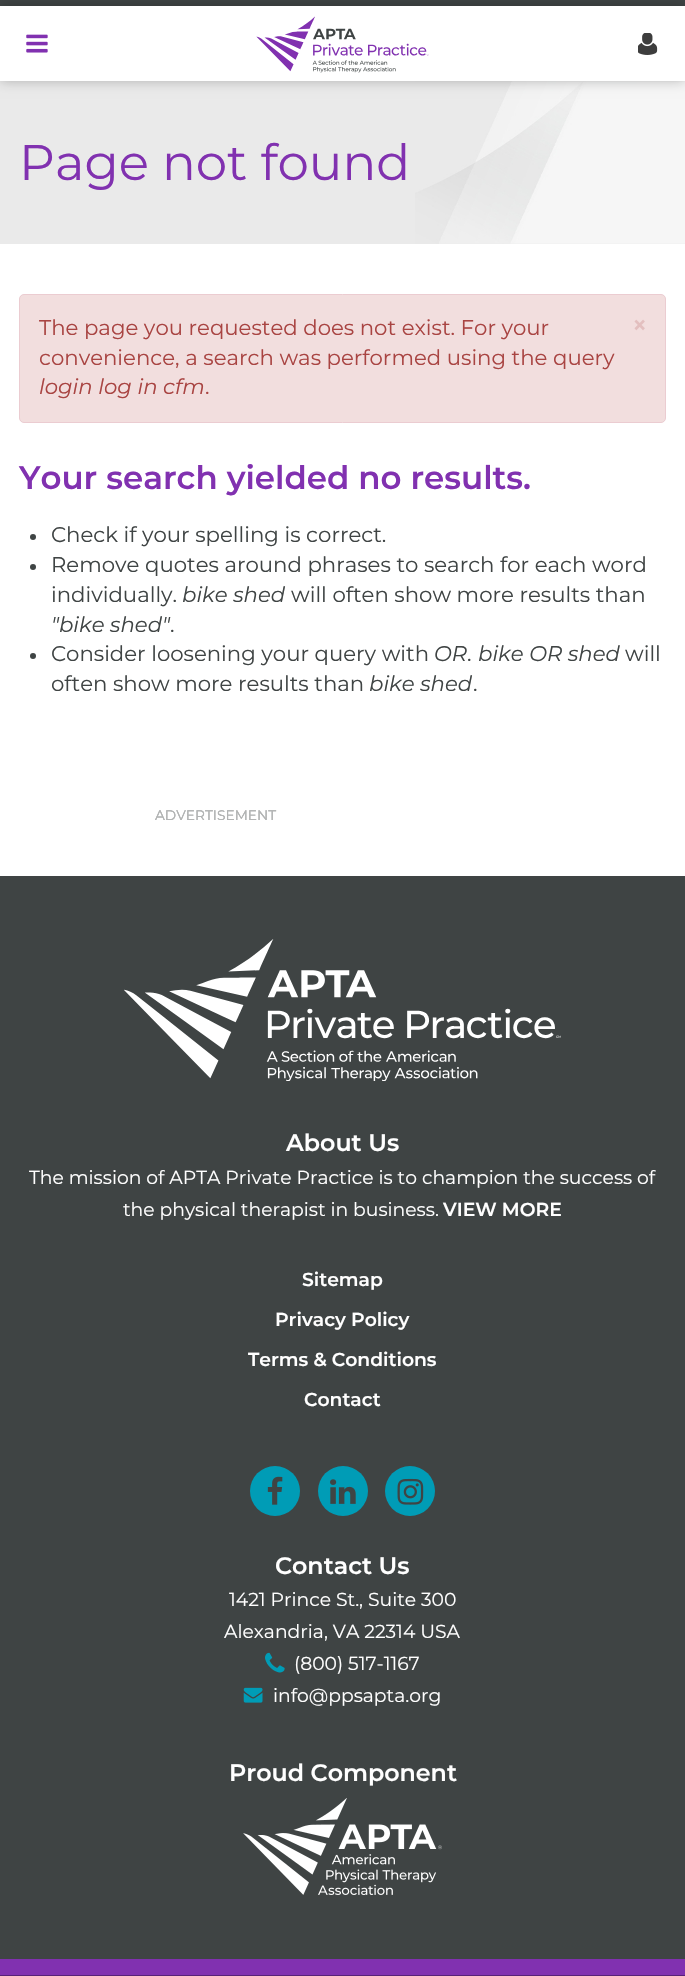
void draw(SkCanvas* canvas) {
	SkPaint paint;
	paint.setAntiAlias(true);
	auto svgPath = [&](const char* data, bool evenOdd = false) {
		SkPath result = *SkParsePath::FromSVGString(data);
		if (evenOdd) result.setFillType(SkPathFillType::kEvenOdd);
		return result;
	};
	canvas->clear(0xffffffff);
	paint.setColor(0xff3f4444);
	canvas->drawRect(SkRect::MakeXYWH(0, 0, 685, 6), paint);
	paint.setColor(0xffeaeaea);
	canvas->drawRect(SkRect::MakeXYWH(0, 81, 685, 163), paint);
	canvas->drawImageRect(SkImages::DeferredFromEncodedData(SkData::MakeFromFileName("img4.png")), SkRect::MakeXYWH(415, 81, 270, 163), SkSamplingOptions());
	canvas->save();
	canvas->clipPath(svgPath("M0 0H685V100H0ZM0 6H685V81H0Z", true), true);
	paint.setColor(0x40000000);
	paint.setMaskFilter(SkMaskFilter::MakeBlur(kNormal_SkBlurStyle, 6));
	canvas->drawRect(SkRect::MakeXYWH(0, 6, 685, 75), paint);
	paint.setMaskFilter(nullptr);
	canvas->restore();
	canvas->drawImageRect(SkImages::DeferredFromEncodedData(SkData::MakeFromFileName("img1.png")), SkRect::MakeXYWH(26, 34, 22, 19), SkSamplingOptions());
	canvas->drawImageRect(SkImages::DeferredFromEncodedData(SkData::MakeFromFileName("img2.png")), SkRect::MakeXYWH(256, 16, 173, 57), SkSamplingOptions());
	canvas->drawImageRect(SkImages::DeferredFromEncodedData(SkData::MakeFromFileName("img3.png")), SkRect::MakeXYWH(638, 33, 20, 22), SkSamplingOptions());
	SkFont f1(fontMgr->matchFamilyStyle("Montserrat", SkFontStyle::Normal()), 50);
	f1.setSubpixel(true);
	paint.setColor(0xff8131b0);
	canvas->drawString("Page not found", 19, 180, f1, paint);
	paint.setColor(0xfff2dede);
	canvas->drawRoundRect(SkRect::MakeXYWH(19.5, 294.5, 646, 128), 4.5, 4.5, paint);
	paint.setStroke(true);
	paint.setStrokeWidth(1);
	paint.setColor(0xffebccd1);
	canvas->drawRoundRect(SkRect::MakeXYWH(19.5, 294.5, 646, 128), 4.5, 4.5, paint);
	SkFont f2(fontMgr->matchFamilyStyle("Montserrat", SkFontStyle::Normal()), 21.25);
	f2.setSubpixel(true);
	paint.setStroke(false);
	paint.setColor(0xffa94442);
	canvas->drawString("The page you requested does not exist. For your", 39, 335, f2, paint);
	canvas->drawString("convenience, a search was performed using the query", 39, 365, f2, paint);
	SkFont f3(fontMgr->matchFamilyStyle("Montserrat", SkFontStyle::Italic()), 21.25);
	f3.setSubpixel(true);
	canvas->drawString("login log in cfm", 39, 394, f3, paint);
	canvas->drawString(".", 205, 394, f2, paint);
	SkFont f4(fontMgr->matchFamilyStyle("Montserrat", SkFontStyle(600, SkFontStyle::kNormal_Width, SkFontStyle::kUpright_Slant)), 26);
	f4.setSubpixel(true);
	paint.setColor(0xffe3bfbf);
	canvas->drawString("×", 632, 334, f4, paint);
	SkFont f5(fontMgr->matchFamilyStyle("Montserrat", SkFontStyle(600, SkFontStyle::kNormal_Width, SkFontStyle::kUpright_Slant)), 32.5);
	f5.setSubpixel(true);
	paint.setColor(0xff8131b0);
	canvas->drawString("Your search yielded no results.", 19, 489, f5, paint);
	paint.setColor(0xff3f4444);
	canvas->drawCircle(33, 537, 3, paint);
	canvas->drawString("Check if your spelling is correct.", 51, 542, f2, paint);
	canvas->drawCircle(33, 567, 3, paint);
	canvas->drawString("Remove quotes around phrases to search for each word", 51, 572, f2, paint);
	canvas->drawString("individually.", 51, 602, f2, paint);
	canvas->drawString("bike shed", 182, 602, f3, paint);
	canvas->drawString("will often show more results than", 291, 602, f2, paint);
	canvas->drawString("\"bike shed\"", 51, 632, f3, paint);
	canvas->drawString(".", 170, 632, f2, paint);
	canvas->drawCircle(33, 656, 3, paint);
	canvas->drawString("Consider loosening your query with", 51, 661, f2, paint);
	canvas->drawString("OR", 434, 661, f3, paint);
	canvas->drawString("bike OR shed", 478, 661, f3, paint);
	canvas->drawString("will", 625, 661, f2, paint);
	canvas->drawString(".", 467, 661, f2, paint);
	canvas->drawString("often show more results than", 51, 691, f2, paint);
	canvas->drawString("bike shed", 369, 691, f3, paint);
	canvas->drawString(".", 473, 691, f2, paint);
	SkFont f6(fontMgr->matchFamilyStyle("Montserrat", SkFontStyle::Normal()), 13.75);
	f6.setSubpixel(true);
	paint.setColor(0xffb2b4b4);
	canvas->drawString("ADVERTISEMENT", 155, 820, f6, paint);
	canvas->drawString("ADVERTISEMENT", 155, 820, f6, paint);
	paint.setColor(0xff3f4444);
	canvas->drawRect(SkRect::MakeXYWH(0, 876, 685, 1083), paint);
	canvas->drawImageRect(SkImages::DeferredFromEncodedData(SkData::MakeFromFileName("img5.png")), SkRect::MakeXYWH(124, 939, 437, 142), SkSamplingOptions());
	SkFont f7(fontMgr->matchFamilyStyle("Montserrat", SkFontStyle(600, SkFontStyle::kNormal_Width, SkFontStyle::kUpright_Slant)), 23.75);
	f7.setSubpixel(true);
	paint.setColor(0xffffffff);
	canvas->drawString("About Us", 286, 1151, f7, paint);
	SkFont f8(fontMgr->matchFamilyStyle("Montserrat", SkFontStyle::Normal()), 18.75);
	f8.setSubpixel(true);
	canvas->drawString("The mission of APTA Private Practice is to champion the success of", 29, 1184, f8, paint);
	canvas->drawString("the physical therapist in business.", 123, 1216, f8, paint);
	SkFont f9(fontMgr->matchFamilyStyle("Montserrat", SkFontStyle(600, SkFontStyle::kNormal_Width, SkFontStyle::kUpright_Slant)), 18.75);
	f9.setSubpixel(true);
	canvas->drawString("VIEW MORE", 443, 1216, f9, paint);
	canvas->drawString("Sitemap", 302, 1286, f9, paint);
	canvas->drawString("Privacy Policy", 275, 1326, f9, paint);
	canvas->drawString("Terms & Conditions", 248, 1366, f9, paint);
	canvas->drawString("Contact", 304, 1406, f9, paint);
	paint.setColor(0xff009cb6);
	canvas->drawCircle(275, 1491, 25, paint);
	canvas->drawImageRect(SkImages::DeferredFromEncodedData(SkData::MakeFromFileName("img6.png")), SkRect::MakeXYWH(267, 1476, 16, 29), SkSamplingOptions());
	canvas->drawCircle(343, 1491, 25, paint);
	canvas->drawImageRect(SkImages::DeferredFromEncodedData(SkData::MakeFromFileName("img7.png")), SkRect::MakeXYWH(330, 1479, 26, 25), SkSamplingOptions());
	canvas->drawCircle(410, 1491, 25, paint);
	canvas->drawImageRect(SkImages::DeferredFromEncodedData(SkData::MakeFromFileName("img8.png")), SkRect::MakeXYWH(397, 1478, 27, 27), SkSamplingOptions());
	paint.setColor(0xffffffff);
	canvas->drawString("Contact Us", 275, 1574, f7, paint);
	canvas->drawString("1421 Prince St., Suite 300", 229, 1606, f8, paint);
	canvas->drawString("Alexandria, VA 22314 USA", 224, 1638, f8, paint);
	canvas->drawImageRect(SkImages::DeferredFromEncodedData(SkData::MakeFromFileName("img9.png")), SkRect::MakeXYWH(265, 1652, 20, 21), SkSamplingOptions());
	canvas->drawString("(800) 517-1167", 294, 1670, f8, paint);
	canvas->drawImageRect(SkImages::DeferredFromEncodedData(SkData::MakeFromFileName("img10.png")), SkRect::MakeXYWH(243, 1687, 20, 16), SkSamplingOptions());
	canvas->drawString("info@ppsapta.org", 273, 1702, f8, paint);
	canvas->drawString("Proud Component", 229, 1781, f7, paint);
	canvas->drawImageRect(SkImages::DeferredFromEncodedData(SkData::MakeFromFileName("img11.png")), SkRect::MakeXYWH(243, 1798, 199, 97), SkSamplingOptions());
	paint.setColor(0xff8131b0);
	canvas->drawRect(SkRect::MakeXYWH(0, 1959, 685, 16), paint);
	paint.setColor(0xff572177);
	canvas->drawRect(SkRect::MakeXYWH(0, 1975, 685, 1), paint);
}
